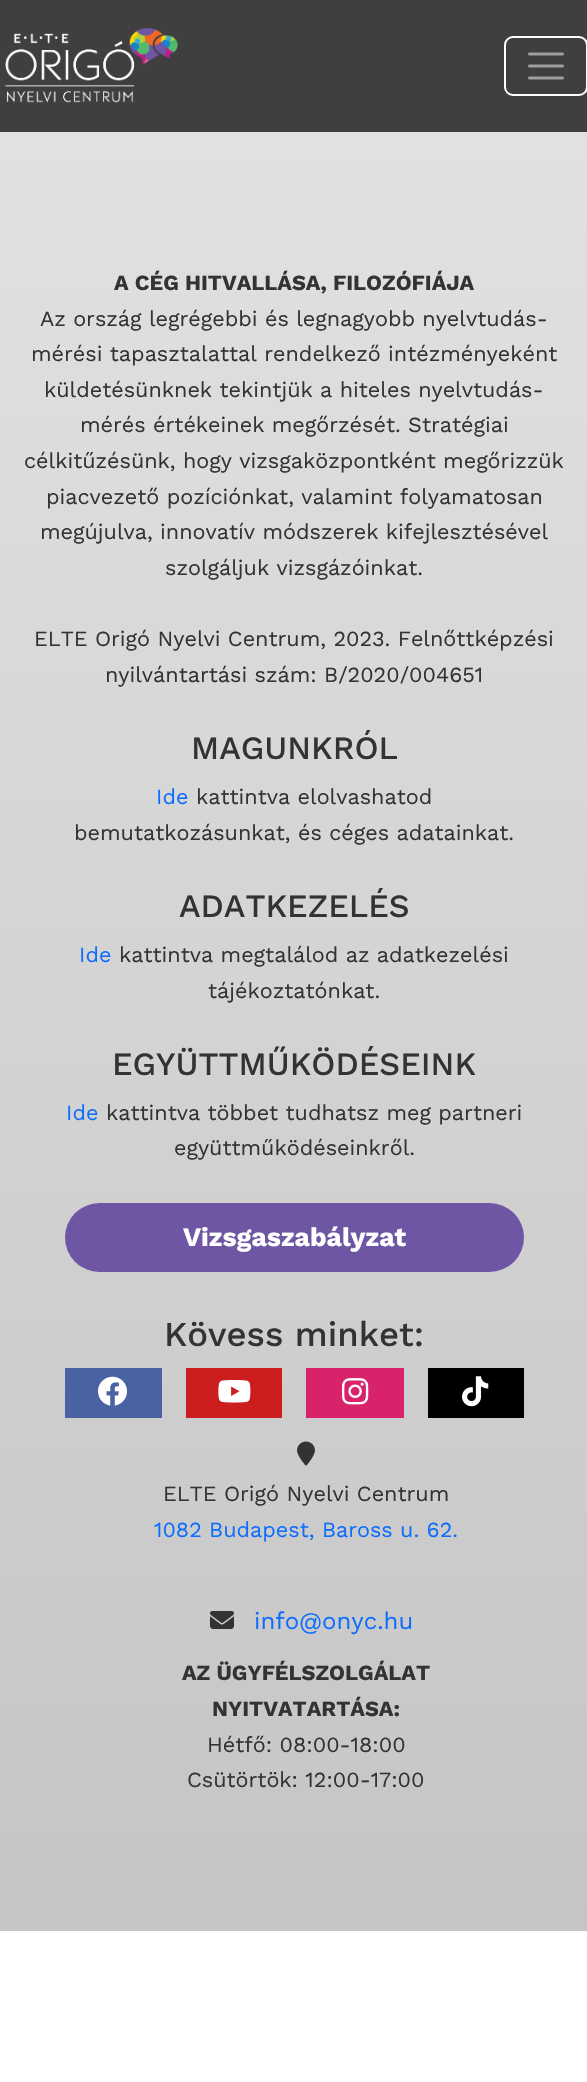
void draw(SkCanvas* canvas) {
	SkPaint paint;
	paint.setAntiAlias(true);
	auto svgPath = [&](const char* data, bool evenOdd = false) {
		SkPath result = *SkParsePath::FromSVGString(data);
		if (evenOdd) result.setFillType(SkPathFillType::kEvenOdd);
		return result;
	};
	canvas->clear(0xffffffff);
	paint.setColor(0xff3f3f40);
	canvas->drawRect(SkRect::MakeXYWH(0, 0, 587, 132), paint);
	canvas->drawImageRect(SkImages::DeferredFromEncodedData(SkData::MakeFromFileName("img1.png")), SkRect::MakeXYWH(5, 28, 174, 75), SkSamplingOptions());
	paint.setStroke(true);
	paint.setStrokeWidth(2);
	paint.setColor(0xffffffff);
	canvas->drawRoundRect(SkRect::MakeXYWH(505, 37, 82, 58), 8, 8, paint);
	paint.setStrokeWidth(3);
	paint.setStrokeCap(SkPaint::kRound_Cap);
	paint.setColor(0xff9f9fa0);
	canvas->drawPath(svgPath("M529.5 54H562.5M529.5 66H562.5M529.5 78H562.5"), paint);
	paint.setStroke(false);
	{
		const SkColor colors[] = {0xffe2e1e1, 0xffc5c5c5};
		const float stops[] = {0, 1};
		const SkPoint ends[] = {{294, 132}, {294, 1931}};
		paint.setShader(SkGradientShader::MakeLinear(ends, colors, stops, 2, SkTileMode::kClamp));
		paint.setAlpha(255);
	}
	canvas->drawRect(SkRect::MakeXYWH(0, 132, 587, 1799), paint);
	SkFont f1(fontMgr->matchFamilyStyle("Work Sans", SkFontStyle::Bold()), 21.6);
	f1.setSubpixel(true);
	paint.setShader(nullptr);
	paint.setColor(0xff333333);
	canvas->drawString("A CÉG HITVALLÁSA, FILOZÓFIÁJA", 114, 290, f1, paint);
	SkFont f2(fontMgr->matchFamilyStyle("Work Sans", SkFontStyle::Normal()), 21.6);
	f2.setSubpixel(true);
	canvas->drawString("Az ország legrégebbi és legnagyobb nyelvtudás-", 40, 326, f2, paint);
	canvas->drawString("mérési tapasztalattal rendelkező intézményeként", 31, 361, f2, paint);
	canvas->drawString("küldetésünknek tekintjük a hiteles nyelvtudás-", 44, 397, f2, paint);
	canvas->drawString("mérés értékeinek megőrzését. Stratégiai", 80, 432, f2, paint);
	canvas->drawString("célkitűzésünk, hogy vizsgaközpontként megőrizzük", 24, 468, f2, paint);
	canvas->drawString("piacvezető pozíciónkat, valamint folyamatosan", 46, 504, f2, paint);
	canvas->drawString("megújulva, innovatív módszerek kifejlesztésével", 40, 539, f2, paint);
	canvas->drawString("szolgáljuk vizsgázóinkat.", 165, 575, f2, paint);
	canvas->drawString("ELTE Origó Nyelvi Centrum, 2023. Felnőttképzési", 34, 646, f2, paint);
	canvas->drawString("nyilvántartási szám: B/2020/004651", 105, 682, f2, paint);
	SkFont f3(fontMgr->matchFamilyStyle("Work Sans", SkFontStyle(500, SkFontStyle::kNormal_Width, SkFontStyle::kUpright_Slant)), 32.4);
	f3.setSubpixel(true);
	canvas->drawString("MAGUNKRÓL", 191, 759, f3, paint);
	paint.setColor(0xff0d6efd);
	canvas->drawString("Ide", 156, 804, f2, paint);
	paint.setColor(0xff333333);
	canvas->drawString("kattintva elolvashatod", 196, 804, f2, paint);
	canvas->drawString("bemutatkozásunkat, és céges adatainkat.", 74, 840, f2, paint);
	canvas->drawString("ADATKEZELÉS", 179, 917, f3, paint);
	paint.setColor(0xff0d6efd);
	canvas->drawString("Ide", 79, 962, f2, paint);
	paint.setColor(0xff333333);
	canvas->drawString("kattintva megtalálod az adatkezelési", 119, 962, f2, paint);
	canvas->drawString("tájékoztatónkat.", 208, 998, f2, paint);
	canvas->drawString("EGYÜTTMŰKÖDÉSEINK", 112, 1075, f3, paint);
	paint.setColor(0xff0d6efd);
	canvas->drawString("Ide", 66, 1120, f2, paint);
	paint.setColor(0xff333333);
	canvas->drawString("kattintva többet tudhatsz meg partneri", 106, 1120, f2, paint);
	canvas->drawString("együttműködéseinkről.", 174, 1155, f2, paint);
	paint.setColor(0xff6e56a4);
	canvas->drawRoundRect(SkRect::MakeXYWH(65, 1203, 459, 69), 34.5, 34.5, paint);
	SkFont f4(fontMgr->matchFamilyStyle("Work Sans", SkFontStyle::Bold()), 26.5);
	f4.setSubpixel(true);
	paint.setColor(0xffffffff);
	canvas->drawString("Vizsgaszabályzat", 183, 1246, f4, paint);
	SkFont f5(fontMgr->matchFamilyStyle("Work Sans", SkFontStyle(500, SkFontStyle::kNormal_Width, SkFontStyle::kUpright_Slant)), 34.75);
	f5.setSubpixel(true);
	paint.setColor(0xff333333);
	canvas->drawString("Kövess minket:", 164, 1346, f5, paint);
	paint.setColor(0xff4862a3);
	canvas->drawRect(SkRect::MakeXYWH(65, 1368, 97, 50), paint);
	canvas->drawImageRect(SkImages::DeferredFromEncodedData(SkData::MakeFromFileName("img2.png")), SkRect::MakeXYWH(98, 1376, 29, 30), SkSamplingOptions());
	paint.setColor(0xffcc1e1f);
	canvas->drawRect(SkRect::MakeXYWH(186, 1368, 96, 50), paint);
	canvas->drawImageRect(SkImages::DeferredFromEncodedData(SkData::MakeFromFileName("img3.png")), SkRect::MakeXYWH(218, 1380, 33, 23), SkSamplingOptions());
	paint.setColor(0xffd8226b);
	canvas->drawRect(SkRect::MakeXYWH(306, 1368, 98, 50), paint);
	canvas->drawImageRect(SkImages::DeferredFromEncodedData(SkData::MakeFromFileName("img4.png")), SkRect::MakeXYWH(342, 1378, 27, 27), SkSamplingOptions());
	paint.setColor(0xff000000);
	canvas->drawRect(SkRect::MakeXYWH(428, 1368, 96, 50), paint);
	canvas->drawImageRect(SkImages::DeferredFromEncodedData(SkData::MakeFromFileName("img5.png")), SkRect::MakeXYWH(462, 1376, 27, 31), SkSamplingOptions());
	canvas->drawImageRect(SkImages::DeferredFromEncodedData(SkData::MakeFromFileName("img6.png")), SkRect::MakeXYWH(297, 1441, 18, 25), SkSamplingOptions());
	paint.setColor(0xff333333);
	canvas->drawString("ELTE Origó Nyelvi Centrum", 163, 1501, f2, paint);
	paint.setColor(0xff0d6efd);
	canvas->drawString("1082 Budapest, Baross u. 62.", 154, 1537, f2, paint);
	canvas->drawImageRect(SkImages::DeferredFromEncodedData(SkData::MakeFromFileName("img7.png")), SkRect::MakeXYWH(210, 1611, 24, 18), SkSamplingOptions());
	SkFont f6(fontMgr->matchFamilyStyle("Work Sans", SkFontStyle::Normal()), 24);
	f6.setSubpixel(true);
	canvas->drawString("info@onyc.hu", 254, 1629, f6, paint);
	paint.setColor(0xff333333);
	canvas->drawString("AZ ÜGYFÉLSZOLGÁLAT", 182, 1680, f1, paint);
	canvas->drawString("NYITVATARTÁSA:", 212, 1716, f1, paint);
	canvas->drawString("Hétfő: 08:00-18:00", 207, 1752, f2, paint);
	canvas->drawString("Csütörtök: 12:00-17:00", 187, 1787, f2, paint);
}
